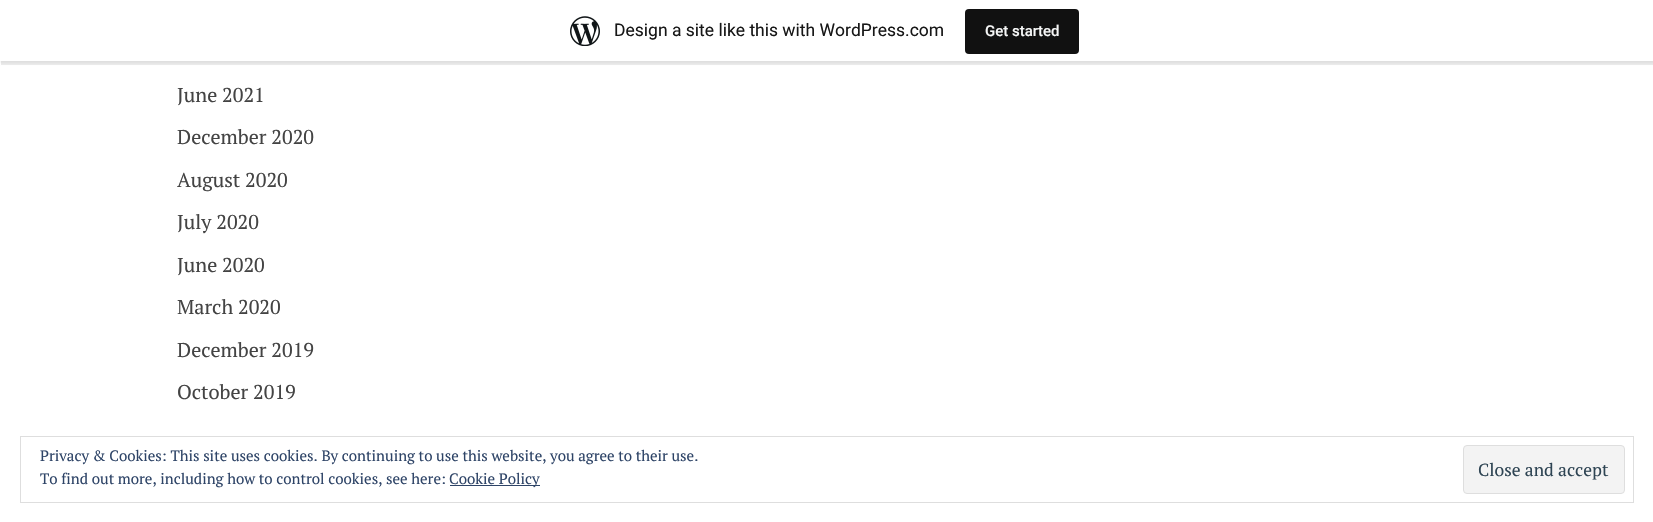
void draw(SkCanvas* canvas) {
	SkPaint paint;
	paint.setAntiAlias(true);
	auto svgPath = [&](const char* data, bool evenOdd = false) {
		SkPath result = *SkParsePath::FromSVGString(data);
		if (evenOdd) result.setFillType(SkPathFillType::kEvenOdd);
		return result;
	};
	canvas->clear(0xffffffff);
	paint.setColor(0x0d000000);
	paint.setMaskFilter(SkMaskFilter::MakeBlur(kNormal_SkBlurStyle, 1));
	canvas->drawRect(SkRect::MakeXYWH(0, 1, 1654, 62), paint);
	paint.setMaskFilter(nullptr);
	paint.setColor(0x14000000);
	canvas->drawPath(svgPath("M1 61V65H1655V4H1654V61Z"), paint);
	paint.setColor(0xffffffff);
	canvas->drawRect(SkRect::MakeXYWH(0, 0, 1653, 61), paint);
	canvas->drawImageRect(SkImages::DeferredFromEncodedData(SkData::MakeFromFileName("img1.png")), SkRect::MakeXYWH(570, 16, 30, 30), SkSamplingOptions());
	SkFont f1(fontMgr->matchFamilyStyle("Roboto", SkFontStyle::Normal()), 17.5);
	f1.setSubpixel(true);
	paint.setColor(0xff171717);
	canvas->drawString("Design a site like this with WordPress.com", 614, 36, f1, paint);
	paint.setColor(0xff111111);
	canvas->drawRoundRect(SkRect::MakeXYWH(965, 9, 114, 45), 4, 4, paint);
	SkFont f2(fontMgr->matchFamilyStyle("Roboto", SkFontStyle(500, SkFontStyle::kNormal_Width, SkFontStyle::kUpright_Slant)), 15);
	f2.setSubpixel(true);
	paint.setColor(0xfff6f7f7);
	canvas->drawString("Get started", 985, 36, f2, paint);
	SkFont f3(fontMgr->matchFamilyStyle("PT Serif", SkFontStyle::Normal()), 20);
	f3.setSubpixel(true);
	paint.setColor(0xff444444);
	canvas->drawString("June 2021", 177, 102, f3, paint);
	canvas->drawString("December 2020", 177, 144, f3, paint);
	canvas->drawString("August 2020", 177, 187, f3, paint);
	canvas->drawString("July 2020", 177, 229, f3, paint);
	canvas->drawString("June 2020", 177, 272, f3, paint);
	canvas->drawString("March 2020", 177, 314, f3, paint);
	canvas->drawString("December 2019", 177, 357, f3, paint);
	canvas->drawString("October 2019", 177, 399, f3, paint);
	paint.setStroke(true);
	paint.setStrokeWidth(1);
	paint.setColor(0xffdedede);
	canvas->drawRect(SkRect::MakeXYWH(20.5, 436.5, 1613, 66), paint);
	SkFont f4(fontMgr->matchFamilyStyle("PT Serif", SkFontStyle::Normal()), 15);
	f4.setSubpixel(true);
	paint.setStroke(false);
	paint.setColor(0xff2e4467);
	canvas->drawString("Privacy & Cookies: This site uses cookies. By continuing to use this website, you agree to their use.", 40, 461, f4, paint);
	canvas->drawString("To find out more, including how to control cookies, see here:", 40, 484, f4, paint);
	canvas->drawRect(SkRect::MakeXYWH(450, 485, 90, 1), paint);
	canvas->drawString("Cookie Policy", 449, 484, f4, paint);
	paint.setColor(0xfff3f3f3);
	canvas->drawRoundRect(SkRect::MakeXYWH(1463.5, 445.5, 161, 48), 3.5, 3.5, paint);
	paint.setStroke(true);
	paint.setColor(0xffdedede);
	canvas->drawRoundRect(SkRect::MakeXYWH(1463.5, 445.5, 161, 48), 3.5, 3.5, paint);
	SkFont f5(fontMgr->matchFamilyStyle("PT Serif", SkFontStyle::Normal()), 17.5);
	f5.setSubpixel(true);
	paint.setStroke(false);
	paint.setColor(0xff2e4453);
	canvas->drawString("Close and accept", 1478, 476, f5, paint);
}
